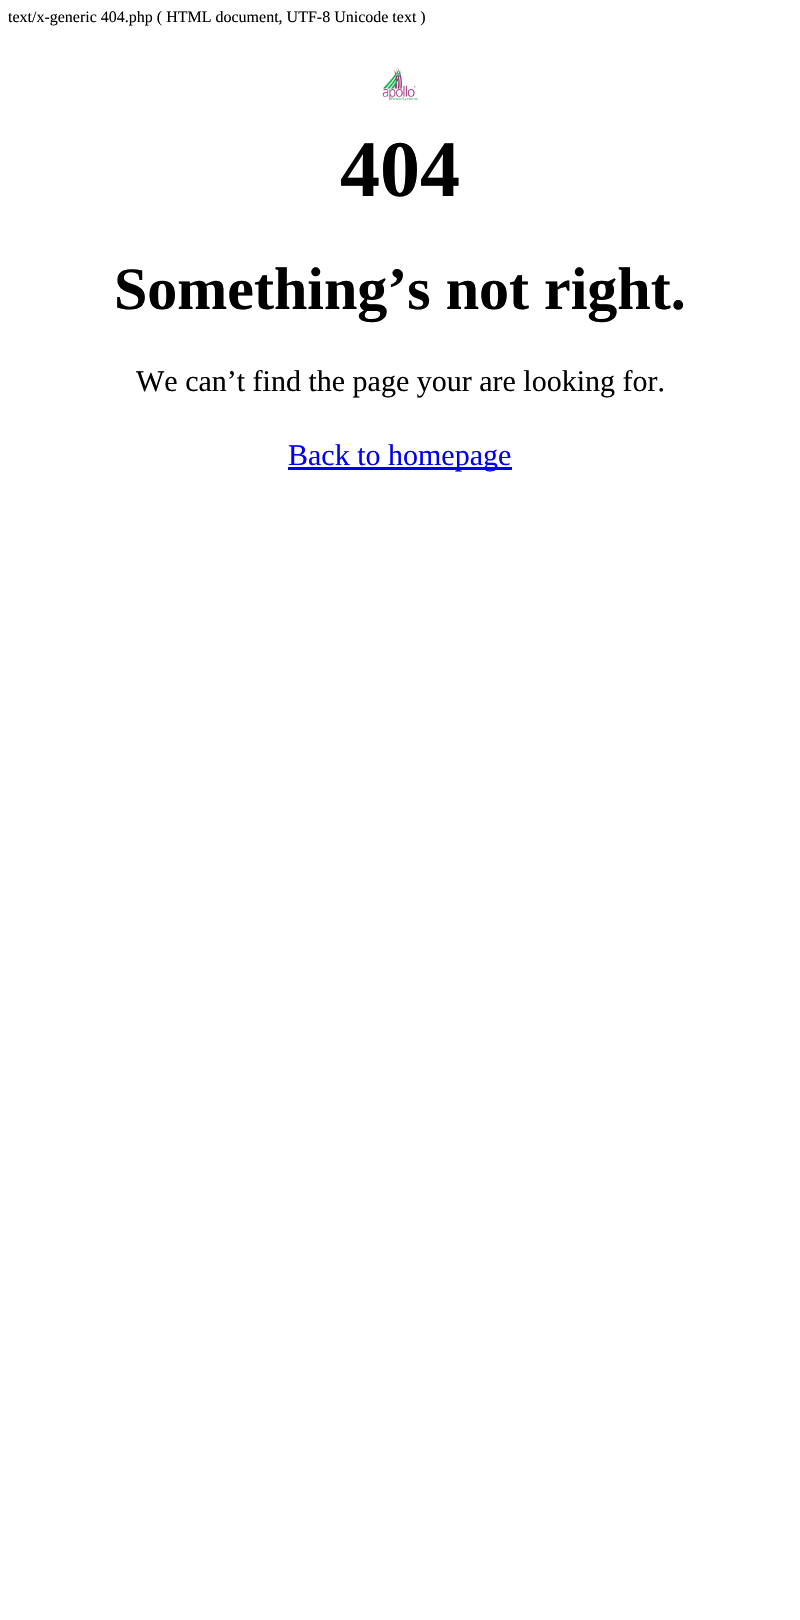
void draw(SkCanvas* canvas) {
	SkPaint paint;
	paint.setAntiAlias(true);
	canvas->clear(0xffffffff);
	SkFont f1(fontMgr->matchFamilyStyle("Liberation Serif", SkFontStyle::Normal()), 16);
	f1.setSubpixel(true);
	paint.setColor(0xff000000);
	canvas->drawString("text/x-generic 404.php ( HTML document, UTF-8 Unicode text )", 8, 22, f1, paint);
	canvas->drawImageRect(SkImages::DeferredFromEncodedData(SkData::MakeFromFileName("img1.png")), SkRect::MakeXYWH(382, 68, 36, 33), SkSamplingOptions());
	SkFont f2(fontMgr->matchFamilyStyle("Liberation Serif", SkFontStyle::Bold()), 80);
	f2.setSubpixel(true);
	canvas->drawString("404", 340, 196, f2, paint);
	SkFont f3(fontMgr->matchFamilyStyle("Liberation Serif", SkFontStyle::Bold()), 60);
	f3.setSubpixel(true);
	canvas->drawString("Something’s not right.", 114, 309, f3, paint);
	SkFont f4(fontMgr->matchFamilyStyle("Liberation Serif", SkFontStyle::Normal()), 30);
	f4.setSubpixel(true);
	canvas->drawString("We can’t find the page your are looking for.", 136, 391, f4, paint);
	paint.setColor(0xff0000ee);
	canvas->drawRect(SkRect::MakeXYWH(288, 467, 224, 3), paint);
	canvas->drawString("Back to homepage", 288, 465, f4, paint);
}
